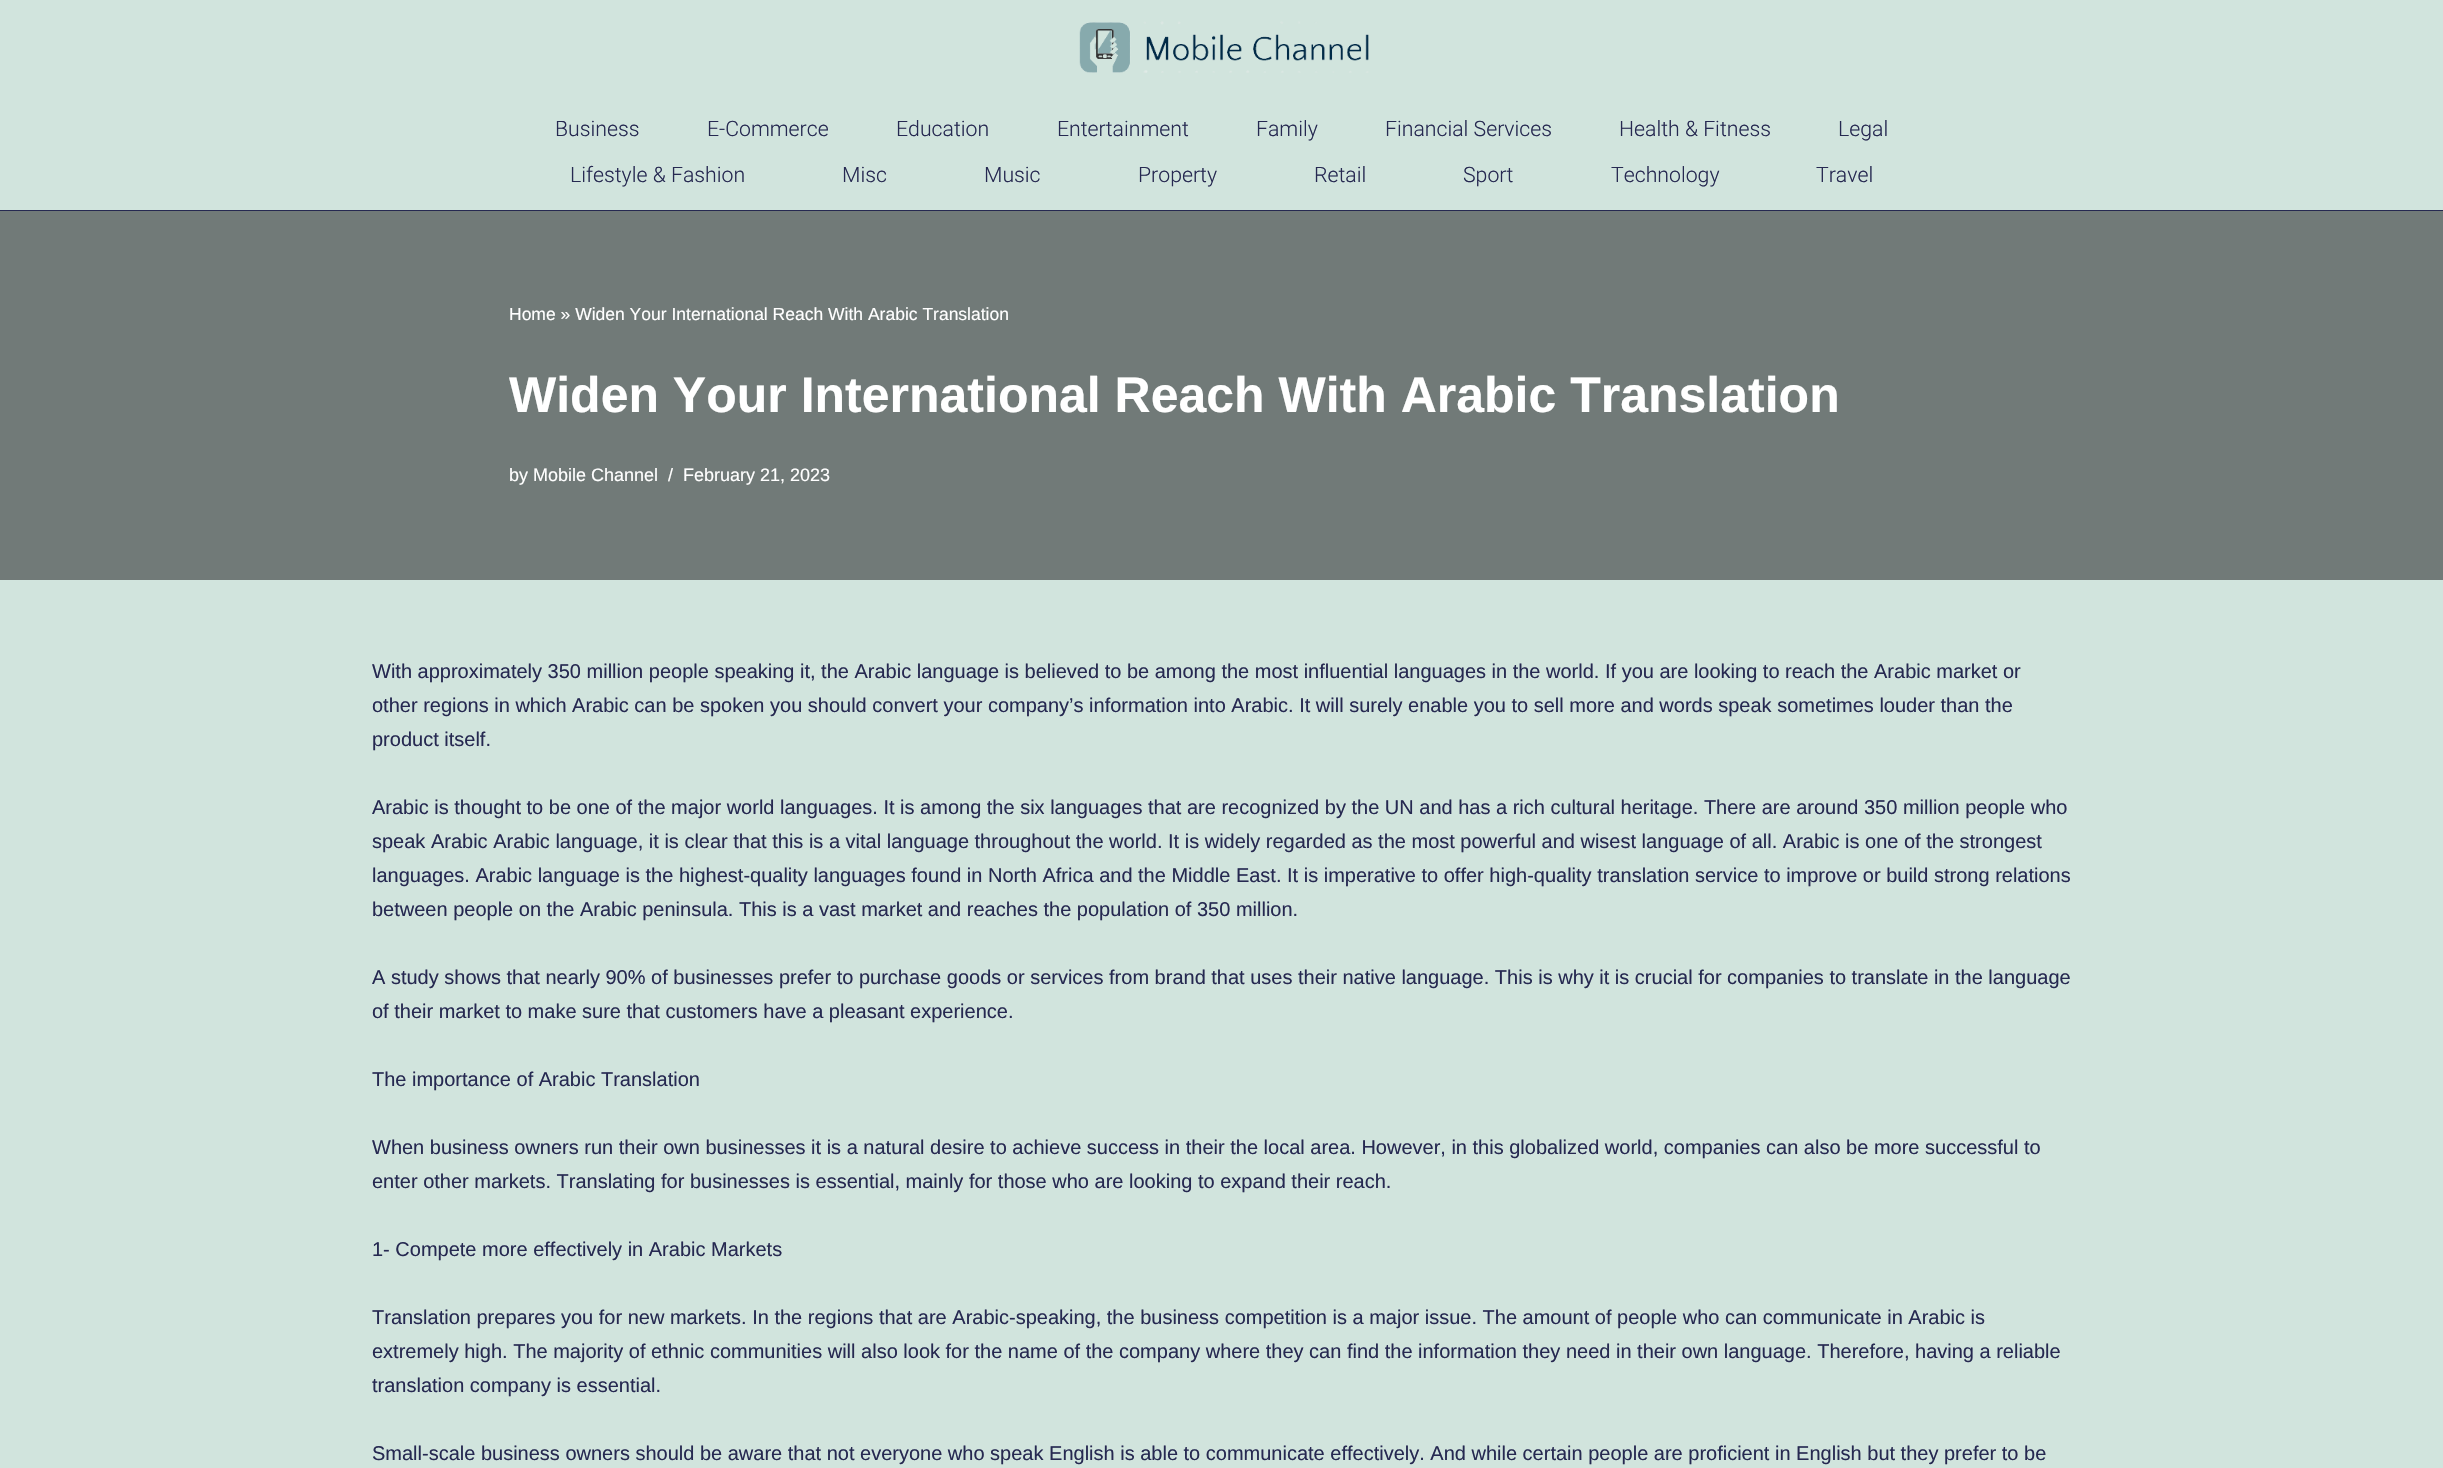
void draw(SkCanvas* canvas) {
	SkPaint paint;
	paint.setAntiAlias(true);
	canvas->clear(0xffd1e4dd);
	paint.setColor(0xff262951);
	canvas->drawRect(SkRect::MakeXYWH(0, 210, 2443, 1), paint);
	canvas->drawImageRect(SkImages::DeferredFromEncodedData(SkData::MakeFromFileName("img1.png")), SkRect::MakeXYWH(1079, 21, 290, 52), SkSamplingOptions());
	SkFont f1(fontMgr->matchFamilyStyle("Roboto", SkFontStyle(300, SkFontStyle::kNormal_Width, SkFontStyle::kUpright_Slant)), 21.25);
	f1.setSubpixel(true);
	canvas->drawString("Business", 555, 136, f1, paint);
	canvas->drawString("E-Commerce", 707, 136, f1, paint);
	canvas->drawString("Education", 896, 136, f1, paint);
	canvas->drawString("Entertainment", 1057, 136, f1, paint);
	canvas->drawString("Family", 1256, 136, f1, paint);
	canvas->drawString("Financial Services", 1385, 136, f1, paint);
	canvas->drawString("Health & Fitness", 1619, 136, f1, paint);
	canvas->drawString("Legal", 1838, 136, f1, paint);
	canvas->drawString("Lifestyle & Fashion", 570, 182, f1, paint);
	canvas->drawString("Misc", 842, 182, f1, paint);
	canvas->drawString("Music", 984, 182, f1, paint);
	canvas->drawString("Property", 1138, 182, f1, paint);
	canvas->drawString("Retail", 1314, 182, f1, paint);
	canvas->drawString("Sport", 1463, 182, f1, paint);
	canvas->drawString("Technology", 1611, 182, f1, paint);
	canvas->drawString("Travel", 1816, 182, f1, paint);
	paint.setColor(0xff717a78);
	canvas->drawRect(SkRect::MakeXYWH(0, 211, 2443, 369), paint);
	SkFont f2(fontMgr->matchFamilyStyle("Liberation Sans", SkFontStyle::Normal()), 17.5);
	f2.setSubpixel(true);
	paint.setColor(0xffffffff);
	canvas->drawString("Home » Widen Your International Reach With Arabic Translation", 509, 320, f2, paint);
	SkFont f3(fontMgr->matchFamilyStyle("Liberation Sans", SkFontStyle::Bold()), 50);
	f3.setSubpixel(true);
	canvas->drawString("Widen Your International Reach With Arabic Translation", 509, 412, f3, paint);
	SkFont f4(fontMgr->matchFamilyStyle("Liberation Sans", SkFontStyle::Normal()), 18);
	f4.setSubpixel(true);
	canvas->drawString("by Mobile Channel", 509, 481, f4, paint);
	canvas->drawString("/", 668, 481, f4, paint);
	canvas->drawString("February 21, 2023", 683, 481, f4, paint);
	SkFont f5(fontMgr->matchFamilyStyle("Liberation Sans", SkFontStyle::Normal()), 20);
	f5.setSubpixel(true);
	paint.setColor(0xff262951);
	canvas->drawString("With approximately 350 million people speaking it, the Arabic language is believed to be among the most influential languages in the world. If you are looking to reach the Arabic market or", 372, 678, f5, paint);
	canvas->drawString("other regions in which Arabic can be spoken you should convert your company’s information into Arabic. It will surely enable you to sell more and words speak sometimes louder than the", 372, 712, f5, paint);
	canvas->drawString("product itself.", 372, 746, f5, paint);
	canvas->drawString("Arabic is thought to be one of the major world languages. It is among the six languages that are recognized by the UN and has a rich cultural heritage. There are around 350 million people who", 372, 814, f5, paint);
	canvas->drawString("speak Arabic Arabic language, it is clear that this is a vital language throughout the world. It is widely regarded as the most powerful and wisest language of all. Arabic is one of the strongest", 372, 848, f5, paint);
	canvas->drawString("languages. Arabic language is the highest-quality languages found in North Africa and the Middle East. It is imperative to offer high-quality translation service to improve or build strong relations", 372, 882, f5, paint);
	canvas->drawString("between people on the Arabic peninsula. This is a vast market and reaches the population of 350 million.", 372, 916, f5, paint);
	canvas->drawString("A study shows that nearly 90% of businesses prefer to purchase goods or services from brand that uses their native language. This is why it is crucial for companies to translate in the language", 372, 984, f5, paint);
	canvas->drawString("of their market to make sure that customers have a pleasant experience.", 372, 1018, f5, paint);
	canvas->drawString("The importance of Arabic Translation", 372, 1086, f5, paint);
	canvas->drawString("When business owners run their own businesses it is a natural desire to achieve success in their the local area. However, in this globalized world, companies can also be more successful to", 372, 1154, f5, paint);
	canvas->drawString("enter other markets. Translating for businesses is essential, mainly for those who are looking to expand their reach.", 372, 1188, f5, paint);
	canvas->drawString("1- Compete more effectively in Arabic Markets", 372, 1256, f5, paint);
	canvas->drawString("Translation prepares you for new markets. In the regions that are Arabic-speaking, the business competition is a major issue. The amount of people who can communicate in Arabic is", 372, 1324, f5, paint);
	canvas->drawString("extremely high. The majority of ethnic communities will also look for the name of the company where they can find the information they need in their own language. Therefore, having a reliable", 372, 1358, f5, paint);
	canvas->drawString("translation company is essential.", 372, 1392, f5, paint);
	canvas->drawString("Small-scale business owners should be aware that not everyone who speak English is able to communicate effectively. And while certain people are proficient in English but they prefer to be", 372, 1460, f5, paint);
}
